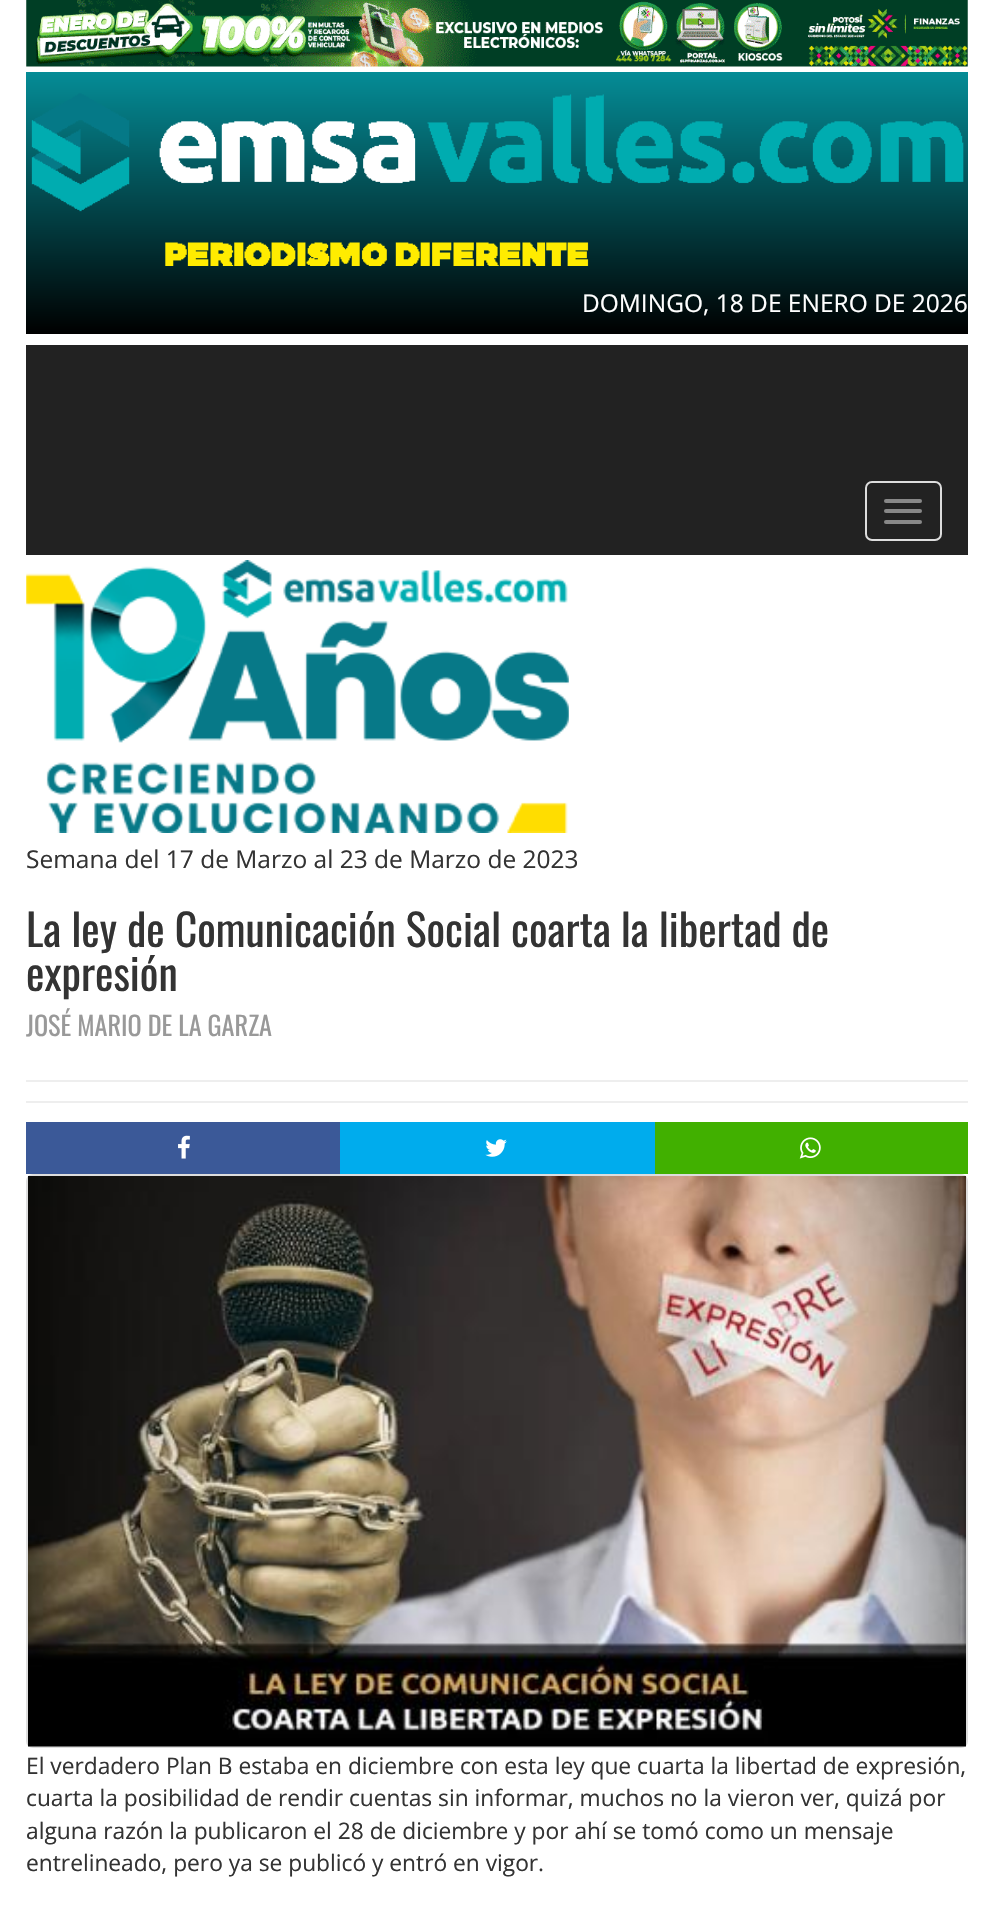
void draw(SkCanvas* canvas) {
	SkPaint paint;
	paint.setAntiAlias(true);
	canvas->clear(0xffffffff);
	canvas->drawImageRect(SkImages::DeferredFromEncodedData(SkData::MakeFromFileName("img1.png")), SkRect::MakeXYWH(26, 0, 942, 67), SkSamplingOptions());
	{
		const SkColor colors[] = {0xff058c96, 0xff000000};
		const float stops[] = {0, 1};
		const SkPoint ends[] = {{497, 72}, {497, 334}};
		paint.setShader(SkGradientShader::MakeLinear(ends, colors, stops, 2, SkTileMode::kClamp));
		paint.setAlpha(255);
	}
	canvas->drawRect(SkRect::MakeXYWH(26, 72, 942, 262), paint);
	canvas->drawImageRect(SkImages::DeferredFromEncodedData(SkData::MakeFromFileName("img2.png")), SkRect::MakeXYWH(31, 93, 933, 173), SkSamplingOptions());
	SkFont f1(fontMgr->matchFamilyStyle("Open Sans", SkFontStyle::Normal()), 24.5);
	f1.setSubpixel(true);
	paint.setShader(nullptr);
	paint.setColor(0xffffffff);
	canvas->drawString("DOMINGO, 18 DE ENERO DE 2026", 582, 312, f1, paint);
	paint.setColor(0xff222222);
	canvas->drawRect(SkRect::MakeXYWH(26, 345, 942, 210), paint);
	paint.setStroke(true);
	paint.setStrokeWidth(2);
	paint.setColor(0xffdddddd);
	canvas->drawRoundRect(SkRect::MakeXYWH(866, 482, 75, 58), 6, 6, paint);
	paint.setStroke(false);
	paint.setColor(0xff888888);
	canvas->drawRoundRect(SkRect::MakeXYWH(884, 499, 38, 4), 2, 2, paint);
	canvas->drawRoundRect(SkRect::MakeXYWH(884, 509, 38, 4), 2, 2, paint);
	canvas->drawRoundRect(SkRect::MakeXYWH(884, 520, 38, 4), 2, 2, paint);
	canvas->drawImageRect(SkImages::DeferredFromEncodedData(SkData::MakeFromFileName("img3.png")), SkRect::MakeXYWH(26, 560, 543, 273), SkSamplingOptions());
	paint.setColor(0xff333333);
	canvas->drawString("Semana del 17 de Marzo al 23 de Marzo de 2023", 26, 868, f1, paint);
	SkFont f2(fontMgr->matchFamilyStyle("Oswald", SkFontStyle::Normal()), 43.75);
	f2.setSubpixel(true);
	canvas->drawString("La ley de Comunicación Social coarta la libertad de", 26, 947, f2, paint);
	canvas->drawString("expresión", 26, 991, f2, paint);
	SkFont f3(fontMgr->matchFamilyStyle("Oswald", SkFontStyle::Normal()), 26.25);
	f3.setSubpixel(true);
	paint.setColor(0xff999999);
	canvas->drawString("JOSÉ MARIO DE LA GARZA", 26, 1036, f3, paint);
	paint.setColor(0xffeeeeee);
	canvas->drawRect(SkRect::MakeXYWH(26, 1080, 942, 2), paint);
	canvas->drawRect(SkRect::MakeXYWH(26, 1101, 942, 2), paint);
	paint.setColor(0xff3b5998);
	canvas->drawRect(SkRect::MakeXYWH(26, 1122, 314, 52), paint);
	canvas->drawImageRect(SkImages::DeferredFromEncodedData(SkData::MakeFromFileName("img4.png")), SkRect::MakeXYWH(178, 1135, 12, 24), SkSamplingOptions());
	paint.setColor(0xff00aced);
	canvas->drawRect(SkRect::MakeXYWH(340, 1122, 315, 52), paint);
	canvas->drawImageRect(SkImages::DeferredFromEncodedData(SkData::MakeFromFileName("img5.png")), SkRect::MakeXYWH(485, 1139, 22, 18), SkSamplingOptions());
	paint.setColor(0xff41b000);
	canvas->drawRect(SkRect::MakeXYWH(655, 1122, 313, 52), paint);
	canvas->drawImageRect(SkImages::DeferredFromEncodedData(SkData::MakeFromFileName("img6.png")), SkRect::MakeXYWH(799, 1137, 22, 22), SkSamplingOptions());
	paint.setStroke(true);
	paint.setColor(0xffdddddd);
	canvas->drawRoundRect(SkRect::MakeXYWH(27, 1175, 940, 572), 6, 6, paint);
	canvas->drawImageRect(SkImages::DeferredFromEncodedData(SkData::MakeFromFileName("img7.png")), SkRect::MakeXYWH(28, 1176, 938, 571), SkSamplingOptions());
	SkFont f4(fontMgr->matchFamilyStyle("Open Sans", SkFontStyle::Normal()), 22.75);
	f4.setSubpixel(true);
	paint.setStroke(false);
	paint.setColor(0xff333333);
	canvas->drawString("El verdadero Plan B estaba en diciembre con esta ley que cuarta la libertad de expresión,", 26, 1774, f4, paint);
	canvas->drawString("cuarta la posibilidad de rendir cuentas sin informar, muchos no la vieron ver, quizá por", 26, 1806, f4, paint);
	canvas->drawString("alguna razón la publicaron el 28 de diciembre y por ahí se tomó como un mensaje", 26, 1839, f4, paint);
	canvas->drawString("entrelineado, pero ya se publicó y entró en vigor.", 26, 1871, f4, paint);
}
